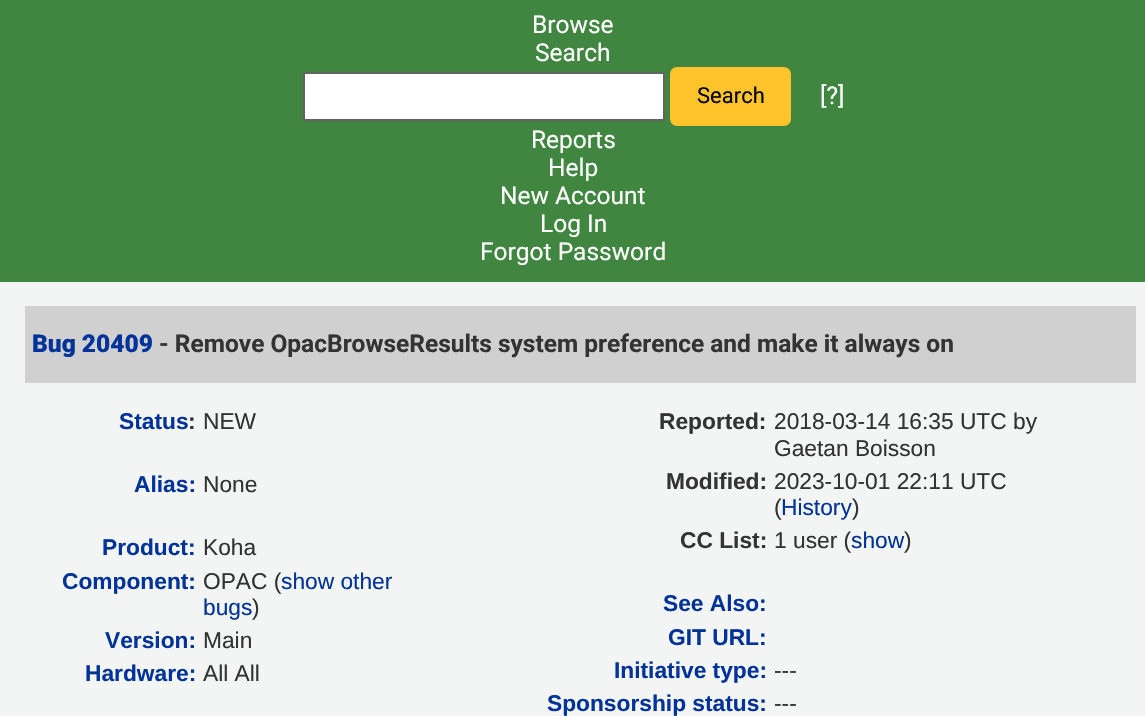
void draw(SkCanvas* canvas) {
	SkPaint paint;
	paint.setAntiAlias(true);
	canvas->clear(0xfff3f4f4);
	paint.setColor(0xff408540);
	canvas->drawRect(SkRect::MakeXYWH(0, 0, 1145, 282), paint);
	SkFont f1(fontMgr->matchFamilyStyle("Roboto", SkFontStyle::Normal()), 24.5);
	f1.setSubpixel(true);
	paint.setColor(0xffffffff);
	canvas->drawString("Browse", 532, 33, f1, paint);
	canvas->drawString("Search", 535, 61, f1, paint);
	canvas->drawRect(SkRect::MakeXYWH(304, 73, 360, 47), paint);
	paint.setStroke(true);
	paint.setStrokeWidth(2);
	paint.setColor(0xff636363);
	canvas->drawRect(SkRect::MakeXYWH(304, 73, 360, 47), paint);
	paint.setStroke(false);
	paint.setColor(0xffffc32b);
	canvas->drawRoundRect(SkRect::MakeXYWH(671, 68, 119, 57), 6, 6, paint);
	paint.setStroke(true);
	canvas->drawRoundRect(SkRect::MakeXYWH(671, 68, 119, 57), 6, 6, paint);
	SkFont f2(fontMgr->matchFamilyStyle("Roboto", SkFontStyle::Normal()), 22);
	f2.setSubpixel(true);
	paint.setStroke(false);
	paint.setColor(0xff000000);
	canvas->drawString("Search", 697, 103, f2, paint);
	paint.setColor(0xffffffff);
	canvas->drawString("[?]", 820, 104, f1, paint);
	canvas->drawString("Reports", 531, 148, f1, paint);
	canvas->drawString("Help", 548, 176, f1, paint);
	canvas->drawString("New Account", 500, 204, f1, paint);
	canvas->drawString("Log In", 540, 232, f1, paint);
	canvas->drawString("Forgot Password", 480, 260, f1, paint);
	paint.setColor(0xffd0d0d0);
	canvas->drawRect(SkRect::MakeXYWH(25, 306, 1111, 77), paint);
	SkFont f3(fontMgr->matchFamilyStyle("Roboto", SkFontStyle(900, SkFontStyle::kNormal_Width, SkFontStyle::kUpright_Slant)), 24.5);
	f3.setSubpixel(true);
	paint.setColor(0xff003399);
	canvas->drawString("Bug 20409", 32, 352, f3, paint);
	SkFont f4(fontMgr->matchFamilyStyle("Roboto", SkFontStyle::Bold()), 24.5);
	f4.setSubpixel(true);
	paint.setColor(0xff333333);
	canvas->drawString("- Remove OpacBrowseResults system preference and make it always on", 159, 352, f4, paint);
	SkFont f5(fontMgr->matchFamilyStyle("Liberation Sans", SkFontStyle::Bold()), 22.75);
	f5.setSubpixel(true);
	paint.setColor(0xff003399);
	canvas->drawString("Status", 119, 429, f5, paint);
	paint.setColor(0xff333333);
	canvas->drawString(":", 188, 429, f5, paint);
	SkFont f6(fontMgr->matchFamilyStyle("Liberation Sans", SkFontStyle::Normal()), 22.75);
	f6.setSubpixel(true);
	canvas->drawString("NEW", 203, 429, f6, paint);
	paint.setColor(0xff003399);
	canvas->drawString("Alias:", 134, 492, f5, paint);
	paint.setColor(0xff333333);
	canvas->drawString("None", 203, 492, f6, paint);
	paint.setColor(0xff003399);
	canvas->drawString("Product:", 102, 555, f5, paint);
	paint.setColor(0xff333333);
	canvas->drawString("Koha", 203, 555, f6, paint);
	paint.setColor(0xff003399);
	canvas->drawString("Component:", 62, 589, f5, paint);
	paint.setColor(0xff333333);
	canvas->drawString("OPAC (", 203, 589, f6, paint);
	paint.setColor(0xff003399);
	canvas->drawString("show other", 281, 589, f6, paint);
	canvas->drawString("bugs", 203, 615, f6, paint);
	paint.setColor(0xff333333);
	canvas->drawString(")", 252, 615, f6, paint);
	paint.setColor(0xff003399);
	canvas->drawString("Version:", 105, 648, f5, paint);
	paint.setColor(0xff333333);
	canvas->drawString("Main", 203, 648, f6, paint);
	paint.setColor(0xff003399);
	canvas->drawString("Hardware:", 85, 681, f5, paint);
	paint.setColor(0xff333333);
	canvas->drawString("All All", 203, 681, f6, paint);
	canvas->drawString("Reported:", 659, 429, f5, paint);
	canvas->drawString("2018-03-14 16:35 UTC by", 774, 429, f6, paint);
	canvas->drawString("Gaetan Boisson", 774, 456, f6, paint);
	canvas->drawString("Modified:", 666, 489, f5, paint);
	canvas->drawString("2023-10-01 22:11 UTC", 774, 489, f6, paint);
	canvas->drawString("(", 774, 515, f6, paint);
	paint.setColor(0xff003399);
	canvas->drawString("History", 781, 515, f6, paint);
	paint.setColor(0xff333333);
	canvas->drawString(")", 852, 515, f6, paint);
	canvas->drawString("CC List:", 680, 548, f5, paint);
	canvas->drawString("1 user (", 774, 548, f6, paint);
	paint.setColor(0xff003399);
	canvas->drawString("show", 851, 548, f6, paint);
	paint.setColor(0xff333333);
	canvas->drawString(")", 904, 548, f6, paint);
	paint.setColor(0xff003399);
	canvas->drawString("See Also:", 663, 611, f5, paint);
	canvas->drawString("GIT URL:", 668, 645, f5, paint);
	canvas->drawString("Initiative type:", 614, 678, f5, paint);
	paint.setColor(0xff333333);
	canvas->drawString("---", 774, 678, f6, paint);
	paint.setColor(0xff003399);
	canvas->drawString("Sponsorship status:", 547, 711, f5, paint);
	paint.setColor(0xff333333);
	canvas->drawString("---", 774, 711, f6, paint);
}
